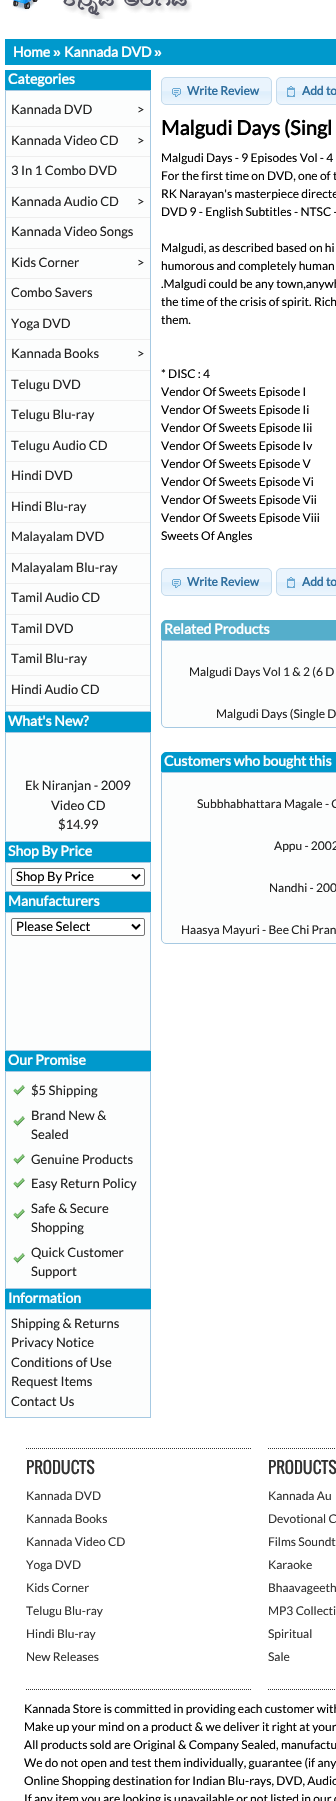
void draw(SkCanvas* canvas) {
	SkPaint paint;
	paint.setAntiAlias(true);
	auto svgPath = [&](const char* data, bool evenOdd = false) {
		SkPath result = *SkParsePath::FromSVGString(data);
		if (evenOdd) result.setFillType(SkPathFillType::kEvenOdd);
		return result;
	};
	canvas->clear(0xffffffff);
	canvas->drawImageRect(SkImages::DeferredFromEncodedData(SkData::MakeFromFileName("img1.png")), SkRect::MakeXYWH(12, 0, 180, 19), SkSamplingOptions());
	paint.setColor(0xff0099cc);
	canvas->drawRect(SkRect::MakeXYWH(5, 39, 331, 26), paint);
	SkFont f1(fontMgr->matchFamilyStyle("Lato", SkFontStyle::Bold()), 14);
	f1.setSubpixel(true);
	paint.setColor(0xffffffff);
	canvas->drawString("Home", 13, 57, f1, paint);
	SkFont f2(fontMgr->matchFamilyStyle("Liberation Sans", SkFontStyle::Bold()), 14);
	f2.setSubpixel(true);
	canvas->drawString("»", 53, 57, f2, paint);
	canvas->drawString("Kannada DVD", 64, 57, f1, paint);
	canvas->drawString("»", 154, 57, f2, paint);
	paint.setColor(0xff0099cc);
	canvas->drawRect(SkRect::MakeXYWH(5, 70, 146, 20), paint);
	paint.setColor(0xffffffff);
	canvas->drawString("Categories", 8, 84, f1, paint);
	paint.setColor(0xfffcfdfd);
	canvas->drawRect(SkRect::MakeXYWH(5.5, 90.5, 145, 621), paint);
	paint.setStroke(true);
	paint.setStrokeWidth(1);
	paint.setColor(0xffa6c9e2);
	canvas->drawRect(SkRect::MakeXYWH(5.5, 90.5, 145, 621), paint);
	paint.setStroke(false);
	paint.setColor(0xffeeeeee);
	canvas->drawRect(SkRect::MakeXYWH(6, 126, 144, 1), paint);
	SkFont f3(fontMgr->matchFamilyStyle("Lato", SkFontStyle::Normal()), 13);
	f3.setSubpixel(true);
	paint.setColor(0xff222222);
	canvas->drawString("Kannada DVD", 11, 114, f3, paint);
	canvas->drawString(">", 137, 114, f3, paint);
	paint.setColor(0xffeeeeee);
	canvas->drawRect(SkRect::MakeXYWH(6, 156, 144, 1), paint);
	paint.setColor(0xff222222);
	canvas->drawString("Kannada Video CD", 11, 145, f3, paint);
	canvas->drawString(">", 137, 145, f3, paint);
	paint.setColor(0xffeeeeee);
	canvas->drawRect(SkRect::MakeXYWH(6, 187, 144, 1), paint);
	paint.setColor(0xff222222);
	canvas->drawString("3 In 1 Combo DVD", 11, 175, f3, paint);
	paint.setColor(0xffeeeeee);
	canvas->drawRect(SkRect::MakeXYWH(6, 217, 144, 1), paint);
	paint.setColor(0xff222222);
	canvas->drawString("Kannada Audio CD", 11, 206, f3, paint);
	canvas->drawString(">", 137, 206, f3, paint);
	paint.setColor(0xffeeeeee);
	canvas->drawRect(SkRect::MakeXYWH(6, 248, 144, 1), paint);
	paint.setColor(0xff222222);
	canvas->drawString("Kannada Video Songs", 11, 236, f3, paint);
	paint.setColor(0xffeeeeee);
	canvas->drawRect(SkRect::MakeXYWH(6, 278, 144, 1), paint);
	paint.setColor(0xff222222);
	canvas->drawString("Kids Corner", 11, 267, f3, paint);
	canvas->drawString(">", 137, 267, f3, paint);
	paint.setColor(0xffeeeeee);
	canvas->drawRect(SkRect::MakeXYWH(6, 309, 144, 1), paint);
	paint.setColor(0xff222222);
	canvas->drawString("Combo Savers", 11, 297, f3, paint);
	paint.setColor(0xffeeeeee);
	canvas->drawRect(SkRect::MakeXYWH(6, 339, 144, 1), paint);
	paint.setColor(0xff222222);
	canvas->drawString("Yoga DVD", 11, 328, f3, paint);
	paint.setColor(0xffeeeeee);
	canvas->drawRect(SkRect::MakeXYWH(6, 370, 144, 1), paint);
	paint.setColor(0xff222222);
	canvas->drawString("Kannada Books", 11, 358, f3, paint);
	canvas->drawString(">", 137, 358, f3, paint);
	paint.setColor(0xffeeeeee);
	canvas->drawRect(SkRect::MakeXYWH(6, 400, 144, 1), paint);
	paint.setColor(0xff222222);
	canvas->drawString("Telugu DVD", 11, 389, f3, paint);
	paint.setColor(0xffeeeeee);
	canvas->drawRect(SkRect::MakeXYWH(6, 431, 144, 1), paint);
	paint.setColor(0xff222222);
	canvas->drawString("Telugu Blu-ray", 11, 419, f3, paint);
	paint.setColor(0xffeeeeee);
	canvas->drawRect(SkRect::MakeXYWH(6, 461, 144, 1), paint);
	paint.setColor(0xff222222);
	canvas->drawString("Telugu Audio CD", 11, 450, f3, paint);
	paint.setColor(0xffeeeeee);
	canvas->drawRect(SkRect::MakeXYWH(6, 492, 144, 1), paint);
	paint.setColor(0xff222222);
	canvas->drawString("Hindi DVD", 11, 480, f3, paint);
	paint.setColor(0xffeeeeee);
	canvas->drawRect(SkRect::MakeXYWH(6, 522, 144, 1), paint);
	paint.setColor(0xff222222);
	canvas->drawString("Hindi Blu-ray", 11, 511, f3, paint);
	paint.setColor(0xffeeeeee);
	canvas->drawRect(SkRect::MakeXYWH(6, 553, 144, 1), paint);
	paint.setColor(0xff222222);
	canvas->drawString("Malayalam DVD", 11, 541, f3, paint);
	paint.setColor(0xffeeeeee);
	canvas->drawRect(SkRect::MakeXYWH(6, 583, 144, 1), paint);
	paint.setColor(0xff222222);
	canvas->drawString("Malayalam Blu-ray", 11, 572, f3, paint);
	paint.setColor(0xffeeeeee);
	canvas->drawRect(SkRect::MakeXYWH(6, 614, 144, 1), paint);
	paint.setColor(0xff222222);
	canvas->drawString("Tamil Audio CD", 11, 602, f3, paint);
	paint.setColor(0xffeeeeee);
	canvas->drawRect(SkRect::MakeXYWH(6, 644, 144, 1), paint);
	paint.setColor(0xff222222);
	canvas->drawString("Tamil DVD", 11, 633, f3, paint);
	paint.setColor(0xffeeeeee);
	canvas->drawRect(SkRect::MakeXYWH(6, 675, 144, 1), paint);
	paint.setColor(0xff222222);
	canvas->drawString("Tamil Blu-ray", 11, 663, f3, paint);
	paint.setColor(0xffeeeeee);
	canvas->drawRect(SkRect::MakeXYWH(6, 705, 144, 1), paint);
	paint.setColor(0xff222222);
	canvas->drawString("Hindi Audio CD", 11, 694, f3, paint);
	paint.setColor(0xff0099cc);
	canvas->drawRect(SkRect::MakeXYWH(5, 712, 146, 20), paint);
	paint.setColor(0xffffffff);
	canvas->drawString("What's New?", 8, 726, f1, paint);
	paint.setColor(0xfffcfdfd);
	canvas->drawRect(SkRect::MakeXYWH(5.5, 732.5, 145, 109), paint);
	paint.setStroke(true);
	paint.setColor(0xffa6c9e2);
	canvas->drawRect(SkRect::MakeXYWH(5.5, 732.5, 145, 109), paint);
	paint.setStroke(false);
	paint.setColor(0xff222222);
	canvas->drawString("Ek Niranjan - 2009", 25, 790, f3, paint);
	canvas->drawString("Video CD", 51, 810, f3, paint);
	canvas->drawString("$14.99", 58, 829, f3, paint);
	paint.setColor(0xff0099cc);
	canvas->drawRect(SkRect::MakeXYWH(5, 842, 146, 20), paint);
	paint.setColor(0xffffffff);
	canvas->drawString("Shop By Price", 8, 856, f1, paint);
	paint.setColor(0xfffcfdfd);
	canvas->drawRect(SkRect::MakeXYWH(5.5, 862.5, 145, 29), paint);
	paint.setStroke(true);
	paint.setColor(0xffa6c9e2);
	canvas->drawRect(SkRect::MakeXYWH(5.5, 862.5, 145, 29), paint);
	paint.setStroke(false);
	paint.setColor(0xffffffff);
	canvas->drawRoundRect(SkRect::MakeXYWH(11.5, 868.5, 133, 17), 1.5, 1.5, paint);
	paint.setStroke(true);
	paint.setColor(0xff767676);
	canvas->drawRoundRect(SkRect::MakeXYWH(11.5, 868.5, 133, 17), 1.5, 1.5, paint);
	paint.setStrokeWidth(2);
	paint.setColor(0xff000000);
	canvas->drawPath(svgPath("M132 874.5L136 878.5L140 874.5"), paint);
	paint.setStroke(false);
	canvas->drawString("Shop By Price", 16, 881, f3, paint);
	paint.setColor(0xff0099cc);
	canvas->drawRect(SkRect::MakeXYWH(5, 892, 146, 20), paint);
	paint.setColor(0xffffffff);
	canvas->drawString("Manufacturers", 8, 906, f1, paint);
	paint.setColor(0xfffcfdfd);
	canvas->drawRect(SkRect::MakeXYWH(5.5, 912.5, 145, 138), paint);
	paint.setStroke(true);
	paint.setStrokeWidth(1);
	paint.setColor(0xffa6c9e2);
	canvas->drawRect(SkRect::MakeXYWH(5.5, 912.5, 145, 138), paint);
	paint.setStroke(false);
	paint.setColor(0xffffffff);
	canvas->drawRoundRect(SkRect::MakeXYWH(11.5, 918.5, 133, 17), 1.5, 1.5, paint);
	paint.setStroke(true);
	paint.setColor(0xff767676);
	canvas->drawRoundRect(SkRect::MakeXYWH(11.5, 918.5, 133, 17), 1.5, 1.5, paint);
	paint.setStrokeWidth(2);
	paint.setColor(0xff000000);
	canvas->drawPath(svgPath("M132 924.5L136 928.5L140 924.5"), paint);
	paint.setStroke(false);
	canvas->drawString("Please Select", 16, 931, f3, paint);
	paint.setColor(0xff0099cc);
	canvas->drawRect(SkRect::MakeXYWH(5, 1051, 146, 20), paint);
	paint.setColor(0xffffffff);
	canvas->drawString("Our Promise", 8, 1065, f1, paint);
	paint.setColor(0xfffcfdfd);
	canvas->drawRect(SkRect::MakeXYWH(5.5, 1071.5, 145, 217), paint);
	paint.setStroke(true);
	paint.setStrokeWidth(1);
	paint.setColor(0xffa6c9e2);
	canvas->drawRect(SkRect::MakeXYWH(5.5, 1071.5, 145, 217), paint);
	canvas->drawImageRect(SkImages::DeferredFromEncodedData(SkData::MakeFromFileName("img2.png")), SkRect::MakeXYWH(13, 1085, 12, 11), SkSamplingOptions());
	paint.setStroke(false);
	paint.setColor(0xff222222);
	canvas->drawString("$5 Shipping", 31, 1095, f3, paint);
	canvas->drawImageRect(SkImages::DeferredFromEncodedData(SkData::MakeFromFileName("img2.png")), SkRect::MakeXYWH(13, 1116, 12, 11), SkSamplingOptions());
	canvas->drawString("Brand New &", 31, 1120, f3, paint);
	canvas->drawString("Sealed", 31, 1139, f3, paint);
	canvas->drawImageRect(SkImages::DeferredFromEncodedData(SkData::MakeFromFileName("img2.png")), SkRect::MakeXYWH(13, 1154, 12, 11), SkSamplingOptions());
	canvas->drawString("Genuine Products", 31, 1164, f3, paint);
	canvas->drawImageRect(SkImages::DeferredFromEncodedData(SkData::MakeFromFileName("img2.png")), SkRect::MakeXYWH(13, 1178, 12, 11), SkSamplingOptions());
	canvas->drawString("Easy Return Policy", 31, 1188, f3, paint);
	canvas->drawImageRect(SkImages::DeferredFromEncodedData(SkData::MakeFromFileName("img2.png")), SkRect::MakeXYWH(13, 1209, 12, 11), SkSamplingOptions());
	canvas->drawString("Safe & Secure", 31, 1213, f3, paint);
	canvas->drawString("Shopping", 31, 1232, f3, paint);
	canvas->drawImageRect(SkImages::DeferredFromEncodedData(SkData::MakeFromFileName("img2.png")), SkRect::MakeXYWH(13, 1253, 12, 11), SkSamplingOptions());
	canvas->drawString("Quick Customer", 31, 1257, f3, paint);
	canvas->drawString("Support", 31, 1276, f3, paint);
	paint.setColor(0xff0099cc);
	canvas->drawRect(SkRect::MakeXYWH(5, 1289, 146, 20), paint);
	paint.setColor(0xffffffff);
	canvas->drawString("Information", 8, 1303, f1, paint);
	paint.setColor(0xfffcfdfd);
	canvas->drawRect(SkRect::MakeXYWH(5.5, 1309.5, 145, 108), paint);
	paint.setStroke(true);
	paint.setColor(0xffa6c9e2);
	canvas->drawRect(SkRect::MakeXYWH(5.5, 1309.5, 145, 108), paint);
	paint.setStroke(false);
	paint.setColor(0xff222222);
	canvas->drawString("Shipping & Returns", 11, 1328, f3, paint);
	canvas->drawString("Privacy Notice", 11, 1347, f3, paint);
	canvas->drawString("Conditions of Use", 11, 1367, f3, paint);
	canvas->drawString("Request Items", 11, 1386, f3, paint);
	canvas->drawString("Contact Us", 11, 1406, f3, paint);
	canvas->drawImageRect(SkImages::DeferredFromEncodedData(SkData::MakeFromFileName("img3.png")), SkRect::MakeXYWH(161, 77, 111, 28), SkSamplingOptions());
	paint.setStroke(true);
	paint.setColor(0xffc5dbec);
	canvas->drawRoundRect(SkRect::MakeXYWH(161.5, 77.5, 110, 27), 4.5, 4.5, paint);
	canvas->drawImageRect(SkImages::DeferredFromEncodedData(SkData::MakeFromFileName("img4.png")), SkRect::MakeXYWH(172, 88, 9, 9), SkSamplingOptions());
	SkFont f4(fontMgr->matchFamilyStyle("Lato", SkFontStyle::Bold()), 12);
	f4.setSubpixel(true);
	paint.setStroke(false);
	paint.setColor(0xff2e6e9e);
	canvas->drawString("Write Review", 187, 95, f4, paint);
	canvas->drawImageRect(SkImages::DeferredFromEncodedData(SkData::MakeFromFileName("img5.png")), SkRect::MakeXYWH(276, 77, 60, 28), SkSamplingOptions());
	paint.setStroke(true);
	paint.setColor(0xffc5dbec);
	canvas->drawRoundRect(SkRect::MakeXYWH(276.5, 77.5, 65, 27), 4.5, 4.5, paint);
	canvas->drawImageRect(SkImages::DeferredFromEncodedData(SkData::MakeFromFileName("img6.png")), SkRect::MakeXYWH(287, 86, 8, 11), SkSamplingOptions());
	paint.setStroke(false);
	paint.setColor(0xff2e6e9e);
	canvas->drawString("Add to", 302, 95, f4, paint);
	SkFont f5(fontMgr->matchFamilyStyle("Lato", SkFontStyle::Bold()), 20);
	f5.setSubpixel(true);
	paint.setColor(0xff000000);
	canvas->drawString("Malgudi Days (Singl", 161, 135, f5, paint);
	SkFont f6(fontMgr->matchFamilyStyle("Lato", SkFontStyle::Normal()), 12);
	f6.setSubpixel(true);
	canvas->drawString("Malgudi Days - 9 Episodes Vol - 4", 161, 162, f6, paint);
	canvas->drawString("For the first time on DVD, one of t", 161, 180, f6, paint);
	canvas->drawString("RK Narayan's masterpiece directe", 161, 198, f6, paint);
	canvas->drawString("DVD 9 - English Subtitles - NTSC -", 161, 216, f6, paint);
	canvas->drawString("Malgudi, as described based on hi", 161, 252, f6, paint);
	canvas->drawString("humorous and completely human", 161, 270, f6, paint);
	canvas->drawString(".Malgudi could be any town,anywh", 161, 288, f6, paint);
	canvas->drawString("the time of the crisis of spirit. Rich", 161, 306, f6, paint);
	canvas->drawString("them.", 161, 324, f6, paint);
	canvas->drawString("* DISC : 4", 161, 378, f6, paint);
	canvas->drawString("Vendor Of Sweets Episode I", 161, 396, f6, paint);
	canvas->drawString("Vendor Of Sweets Episode Ii", 161, 414, f6, paint);
	canvas->drawString("Vendor Of Sweets Episode Iii", 161, 432, f6, paint);
	canvas->drawString("Vendor Of Sweets Episode Iv", 161, 450, f6, paint);
	canvas->drawString("Vendor Of Sweets Episode V", 161, 468, f6, paint);
	canvas->drawString("Vendor Of Sweets Episode Vi", 161, 486, f6, paint);
	canvas->drawString("Vendor Of Sweets Episode Vii", 161, 504, f6, paint);
	canvas->drawString("Vendor Of Sweets Episode Viii", 161, 522, f6, paint);
	canvas->drawString("Sweets Of Angles", 161, 540, f6, paint);
	canvas->drawImageRect(SkImages::DeferredFromEncodedData(SkData::MakeFromFileName("img3.png")), SkRect::MakeXYWH(161, 568, 111, 28), SkSamplingOptions());
	paint.setStroke(true);
	paint.setColor(0xffc5dbec);
	canvas->drawRoundRect(SkRect::MakeXYWH(161.5, 568.5, 110, 27), 4.5, 4.5, paint);
	canvas->drawImageRect(SkImages::DeferredFromEncodedData(SkData::MakeFromFileName("img4.png")), SkRect::MakeXYWH(172, 579, 9, 9), SkSamplingOptions());
	paint.setStroke(false);
	paint.setColor(0xff2e6e9e);
	canvas->drawString("Write Review", 187, 586, f4, paint);
	canvas->drawImageRect(SkImages::DeferredFromEncodedData(SkData::MakeFromFileName("img5.png")), SkRect::MakeXYWH(276, 568, 60, 28), SkSamplingOptions());
	paint.setStroke(true);
	paint.setColor(0xffc5dbec);
	canvas->drawRoundRect(SkRect::MakeXYWH(276.5, 568.5, 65, 27), 4.5, 4.5, paint);
	canvas->drawImageRect(SkImages::DeferredFromEncodedData(SkData::MakeFromFileName("img6.png")), SkRect::MakeXYWH(287, 577, 8, 11), SkSamplingOptions());
	paint.setStroke(false);
	paint.setColor(0xff2e6e9e);
	canvas->drawString("Add to", 302, 586, f4, paint);
	paint.setColor(0xff55aecb);
	canvas->drawPath(svgPath("M166 620.5H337C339.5 620.5 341.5 622.5 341.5 625V639.5H161.5V625C161.5 622.5 163.5 620.5 166 620.5Z"), paint);
	paint.setStroke(true);
	canvas->drawPath(svgPath("M166 620.5H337C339.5 620.5 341.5 622.5 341.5 625V639.5H161.5V625C161.5 622.5 163.5 620.5 166 620.5Z"), paint);
	paint.setStroke(false);
	paint.setColor(0xffffffff);
	canvas->drawString("Related Products", 164, 634, f1, paint);
	paint.setColor(0xfffcfdfd);
	canvas->drawPath(svgPath("M161.5 640.5H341.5V723C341.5 725.5 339.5 727.5 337 727.5H166C163.5 727.5 161.5 725.5 161.5 723Z"), paint);
	paint.setStroke(true);
	paint.setColor(0xffa6c9e2);
	canvas->drawPath(svgPath("M161.5 640.5H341.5V723C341.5 725.5 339.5 727.5 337 727.5H166C163.5 727.5 161.5 725.5 161.5 723Z"), paint);
	paint.setStroke(false);
	paint.setColor(0xff222222);
	canvas->drawString("Malgudi Days Vol 1 & 2 (6 D", 189, 676, f6, paint);
	canvas->drawString("Malgudi Days (Single D", 216, 718, f6, paint);
	paint.setColor(0xff0099cc);
	canvas->drawPath(svgPath("M166 752.5H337C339.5 752.5 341.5 754.5 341.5 757V771.5H161.5V757C161.5 754.5 163.5 752.5 166 752.5Z"), paint);
	paint.setStroke(true);
	canvas->drawPath(svgPath("M166 752.5H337C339.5 752.5 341.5 754.5 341.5 757V771.5H161.5V757C161.5 754.5 163.5 752.5 166 752.5Z"), paint);
	paint.setStroke(false);
	paint.setColor(0xffffffff);
	canvas->drawString("Customers who bought this", 164, 766, f1, paint);
	paint.setColor(0xfffcfdfd);
	canvas->drawPath(svgPath("M161.5 772.5H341.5V939C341.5 941.5 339.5 943.5 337 943.5H166C163.5 943.5 161.5 941.5 161.5 939Z"), paint);
	paint.setStroke(true);
	paint.setColor(0xffa6c9e2);
	canvas->drawPath(svgPath("M161.5 772.5H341.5V939C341.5 941.5 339.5 943.5 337 943.5H166C163.5 943.5 161.5 941.5 161.5 939Z"), paint);
	paint.setStroke(false);
	paint.setColor(0xff222222);
	canvas->drawString("Subbhabhattara Magale - C", 197, 808, f6, paint);
	canvas->drawString("Appu - 2002", 274, 850, f6, paint);
	canvas->drawString("Nandhi - 200", 269, 892, f6, paint);
	canvas->drawString("Haasya Mayuri - Bee Chi Pran", 181, 934, f6, paint);
	paint.setStroke(true);
	paint.setColor(0xff333333);
	paint.setPathEffect(SkDashPathEffect::Make({{1, 1}}, 0));
	canvas->drawPath(svgPath("M26 1448.5H251"), paint);
	paint.setPathEffect(nullptr);
	paint.setPathEffect(SkDashPathEffect::Make({{1, 1}}, 0));
	canvas->drawPath(svgPath("M26 1689.5H251"), paint);
	paint.setPathEffect(nullptr);
	SkFont f7(fontMgr->matchFamilyStyle("Oswald", SkFontStyle::Normal()), 16);
	f7.setSubpixel(true);
	paint.setStroke(false);
	canvas->drawString("PRODUCTS", 26, 1474, f7, paint);
	canvas->drawString("Kannada DVD", 26, 1500, f6, paint);
	canvas->drawString("Kannada Books", 26, 1523, f6, paint);
	canvas->drawString("Kannada Video CD", 26, 1546, f6, paint);
	canvas->drawString("Yoga DVD", 26, 1569, f6, paint);
	canvas->drawString("Kids Corner", 26, 1592, f6, paint);
	canvas->drawString("Telugu Blu-ray", 26, 1615, f6, paint);
	canvas->drawString("Hindi Blu-ray", 26, 1638, f6, paint);
	canvas->drawString("New Releases", 26, 1661, f6, paint);
	paint.setStroke(true);
	paint.setPathEffect(SkDashPathEffect::Make({{1, 1}}, 0));
	canvas->drawPath(svgPath("M268 1448.5H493"), paint);
	paint.setPathEffect(nullptr);
	paint.setPathEffect(SkDashPathEffect::Make({{1, 1}}, 0));
	canvas->drawPath(svgPath("M268 1689.5H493"), paint);
	paint.setPathEffect(nullptr);
	paint.setStroke(false);
	canvas->drawString("PRODUCTS", 268, 1474, f7, paint);
	canvas->drawString("Kannada Au", 268, 1500, f6, paint);
	canvas->drawString("Devotional C", 268, 1523, f6, paint);
	canvas->drawString("Films Soundt", 268, 1546, f6, paint);
	canvas->drawString("Karaoke", 268, 1569, f6, paint);
	canvas->drawString("Bhaavageeth", 268, 1592, f6, paint);
	canvas->drawString("MP3 Collecti", 268, 1615, f6, paint);
	canvas->drawString("Spiritual", 268, 1638, f6, paint);
	canvas->drawString("Sale", 268, 1661, f6, paint);
	paint.setColor(0xff000000);
	canvas->drawString("Kannada Store is committed in providing each customer with", 24, 1713, f6, paint);
	canvas->drawString("Make up your mind on a product & we deliver it right at your", 24, 1731, f6, paint);
	canvas->drawString("All products sold are Original & Company Sealed, manufactu", 24, 1749, f6, paint);
	canvas->drawString("We do not open and test them individually, guarantee (if any", 24, 1767, f6, paint);
	canvas->drawString("Online Shopping destination for Indian Blu-rays, DVD, Audio", 24, 1785, f6, paint);
	canvas->drawString("If any item you are looking is unavailable or not listed in our c", 24, 1803, f6, paint);
}
